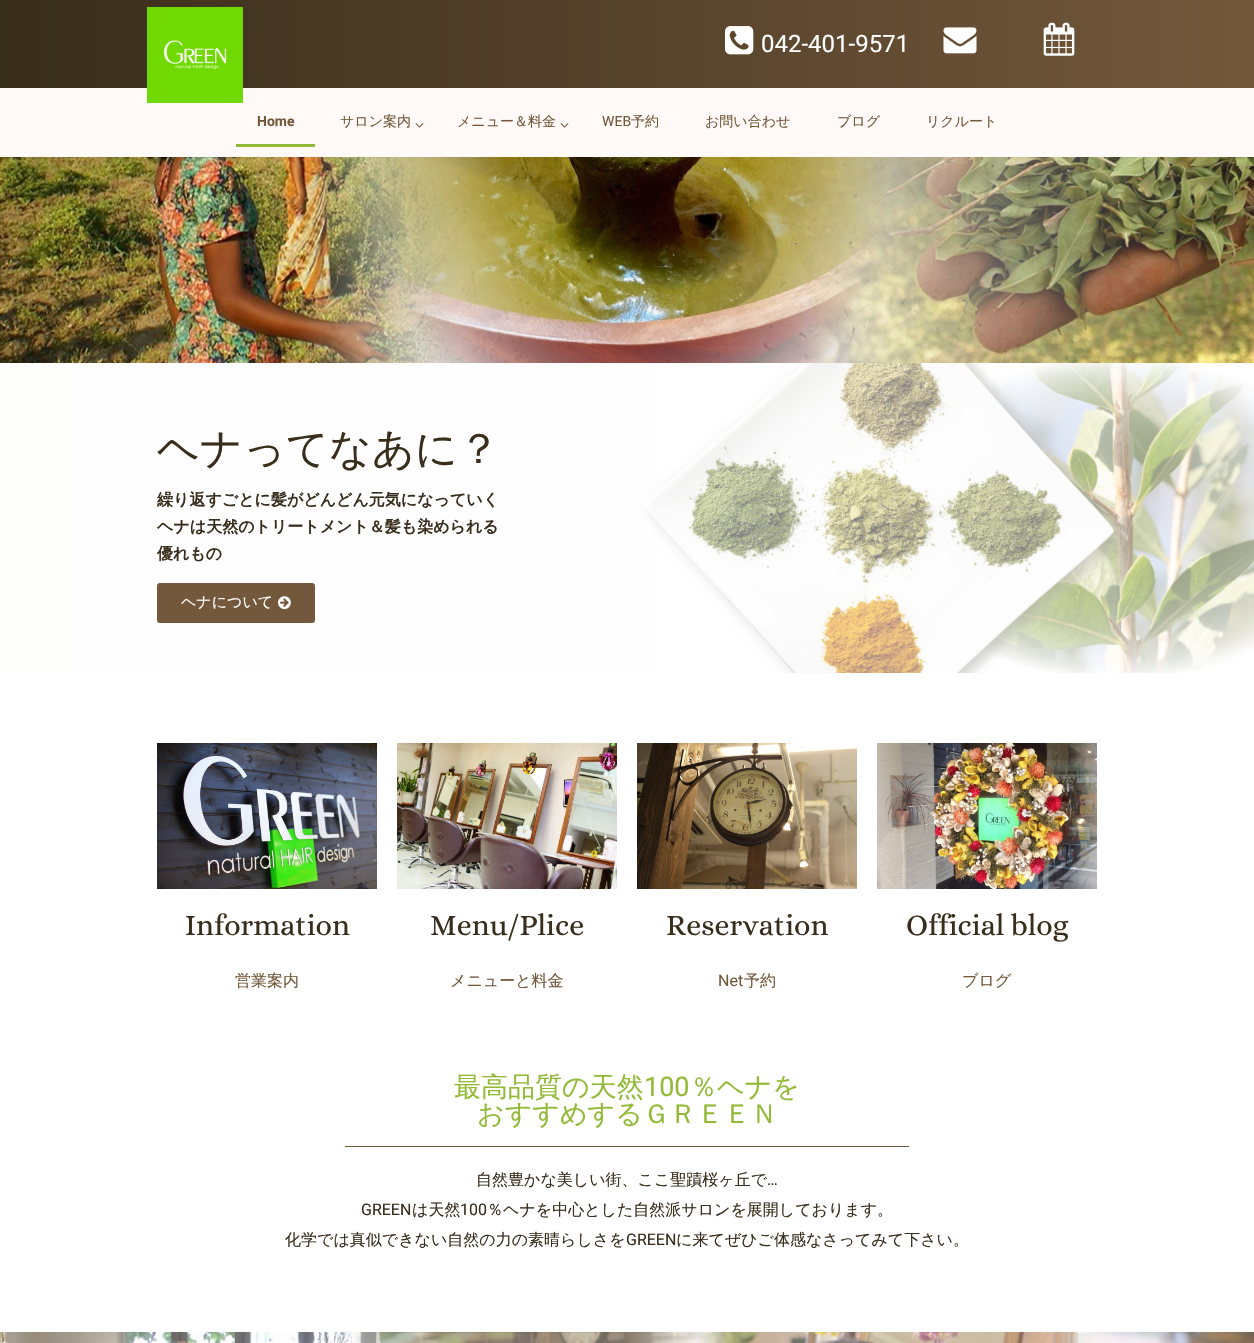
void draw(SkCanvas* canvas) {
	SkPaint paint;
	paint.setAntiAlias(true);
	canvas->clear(0xffffffff);
	{
		const SkColor colors[] = {0xff392d1c, 0xff73583b};
		const float stops[] = {0, 1};
		const SkPoint ends[] = {{0, 44}, {1254, 44}};
		paint.setShader(SkGradientShader::MakeLinear(ends, colors, stops, 2, SkTileMode::kClamp));
		paint.setAlpha(255);
	}
	canvas->drawRect(SkRect::MakeXYWH(0, 0, 1254, 88), paint);
	paint.setShader(nullptr);
	paint.setColor(0xfffffaf7);
	canvas->drawRect(SkRect::MakeXYWH(0, 88, 1254, 69), paint);
	canvas->drawImageRect(SkImages::DeferredFromEncodedData(SkData::MakeFromFileName("img1.png")), SkRect::MakeXYWH(147, 7, 96, 96), SkSamplingOptions());
	canvas->drawImageRect(SkImages::DeferredFromEncodedData(SkData::MakeFromFileName("img2.png")), SkRect::MakeXYWH(725, 26, 29, 29), SkSamplingOptions());
	SkFont f1(fontMgr->matchFamilyStyle("Roboto", SkFontStyle::Normal()), 24);
	f1.setSubpixel(true);
	paint.setColor(0xffffffff);
	canvas->drawString("042-401-9571", 761, 52, f1, paint);
	canvas->drawImageRect(SkImages::DeferredFromEncodedData(SkData::MakeFromFileName("img3.png")), SkRect::MakeXYWH(943, 27, 34, 27), SkSamplingOptions());
	canvas->drawImageRect(SkImages::DeferredFromEncodedData(SkData::MakeFromFileName("img4.png")), SkRect::MakeXYWH(1043, 22, 32, 34), SkSamplingOptions());
	paint.setColor(0xff93ba36);
	canvas->drawRect(SkRect::MakeXYWH(236, 144, 79, 3), paint);
	SkFont f2(fontMgr->matchFamilyStyle("Roboto", SkFontStyle::Bold()), 14);
	f2.setSubpixel(true);
	paint.setColor(0xff73583b);
	canvas->drawString("Home", 257, 126, f2, paint);
	SkFont f3(fontMgr->matchFamilyStyle("WenQuanYi Zen Hei", SkFontStyle(500, SkFontStyle::kNormal_Width, SkFontStyle::kUpright_Slant)), 14);
	f3.setSubpixel(true);
	canvas->drawString("サロン案内", 340, 126, f3, paint);
	canvas->drawImageRect(SkImages::DeferredFromEncodedData(SkData::MakeFromFileName("img5.png")), SkRect::MakeXYWH(415, 123, 9, 5), SkSamplingOptions());
	canvas->drawString("メニュー＆料金", 457, 126, f3, paint);
	canvas->drawImageRect(SkImages::DeferredFromEncodedData(SkData::MakeFromFileName("img5.png")), SkRect::MakeXYWH(560, 123, 9, 5), SkSamplingOptions());
	SkFont f4(fontMgr->matchFamilyStyle("Roboto", SkFontStyle::Normal()), 14);
	f4.setSubpixel(true);
	canvas->drawString("WEB", 602, 126, f4, paint);
	canvas->drawString("予約", 631, 126, f3, paint);
	canvas->drawString("お問い合わせ", 705, 126, f3, paint);
	canvas->drawString("ブログ", 837, 126, f3, paint);
	canvas->drawString("リクルート", 926, 126, f3, paint);
	canvas->drawImageRect(SkImages::DeferredFromEncodedData(SkData::MakeFromFileName("img6.png")), SkRect::MakeXYWH(0, 157, 1254, 206), SkSamplingOptions());
	canvas->drawImageRect(SkImages::DeferredFromEncodedData(SkData::MakeFromFileName("img7.png")), SkRect::MakeXYWH(0, 363, 1254, 310), SkSamplingOptions());
	SkFont f5(fontMgr->matchFamilyStyle("WenQuanYi Zen Hei", SkFontStyle(500, SkFontStyle::kNormal_Width, SkFontStyle::kUpright_Slant)), 42);
	f5.setSubpixel(true);
	paint.setColor(0xff392d1c);
	canvas->drawString("ヘナってなあに？", 157, 463, f5, paint);
	SkFont f6(fontMgr->matchFamilyStyle("WenQuanYi Zen Hei", SkFontStyle::Bold()), 16);
	f6.setSubpixel(true);
	canvas->drawString("繰り返すごとに髪がどんどん元気になっていく", 157, 505, f6, paint);
	canvas->drawString("ヘナは天然のトリートメント＆髪も染められる", 157, 532, f6, paint);
	canvas->drawString("優れもの", 157, 559, f6, paint);
	paint.setColor(0xff73583b);
	canvas->drawRoundRect(SkRect::MakeXYWH(157, 583, 158, 40), 3, 3, paint);
	SkFont f7(fontMgr->matchFamilyStyle("WenQuanYi Zen Hei", SkFontStyle(500, SkFontStyle::kNormal_Width, SkFontStyle::kUpright_Slant)), 15);
	f7.setSubpixel(true);
	paint.setColor(0xffffffff);
	canvas->drawString("ヘナについて", 181, 607, f7, paint);
	canvas->drawImageRect(SkImages::DeferredFromEncodedData(SkData::MakeFromFileName("img8.png")), SkRect::MakeXYWH(278, 596, 13, 14), SkSamplingOptions());
	canvas->drawImageRect(SkImages::DeferredFromEncodedData(SkData::MakeFromFileName("img9.png")), SkRect::MakeXYWH(157, 743, 220, 146), SkSamplingOptions());
	SkFont f8(fontMgr->matchFamilyStyle("Alice", SkFontStyle::Normal()), 30);
	f8.setSubpixel(true);
	paint.setColor(0xff392d1c);
	canvas->drawString("Information", 185, 935, f8, paint);
	SkFont f9(fontMgr->matchFamilyStyle("WenQuanYi Zen Hei", SkFontStyle(500, SkFontStyle::kNormal_Width, SkFontStyle::kUpright_Slant)), 16);
	f9.setSubpixel(true);
	paint.setColor(0xff73583b);
	canvas->drawString("営業案内", 235, 986, f9, paint);
	canvas->drawImageRect(SkImages::DeferredFromEncodedData(SkData::MakeFromFileName("img10.png")), SkRect::MakeXYWH(397, 743, 220, 146), SkSamplingOptions());
	paint.setColor(0xff392d1c);
	canvas->drawString("Menu/Plice", 430, 935, f8, paint);
	paint.setColor(0xff73583b);
	canvas->drawString("メニューと料金", 450, 986, f9, paint);
	canvas->drawImageRect(SkImages::DeferredFromEncodedData(SkData::MakeFromFileName("img11.png")), SkRect::MakeXYWH(637, 743, 220, 146), SkSamplingOptions());
	paint.setColor(0xff392d1c);
	canvas->drawString("Reservation", 666, 935, f8, paint);
	SkFont f10(fontMgr->matchFamilyStyle("Roboto", SkFontStyle::Normal()), 16);
	f10.setSubpixel(true);
	paint.setColor(0xff73583b);
	canvas->drawString("Net", 718, 986, f10, paint);
	canvas->drawString("予約", 744, 986, f9, paint);
	canvas->drawImageRect(SkImages::DeferredFromEncodedData(SkData::MakeFromFileName("img12.png")), SkRect::MakeXYWH(877, 743, 220, 146), SkSamplingOptions());
	paint.setColor(0xff392d1c);
	canvas->drawString("Official blog", 906, 935, f8, paint);
	paint.setColor(0xff73583b);
	canvas->drawString("ブログ", 962, 986, f9, paint);
	SkFont f11(fontMgr->matchFamilyStyle("WenQuanYi Zen Hei", SkFontStyle(500, SkFontStyle::kNormal_Width, SkFontStyle::kUpright_Slant)), 27);
	f11.setSubpixel(true);
	paint.setColor(0xff93ba36);
	canvas->drawString("最高品質の天然", 454, 1096, f11, paint);
	SkFont f12(fontMgr->matchFamilyStyle("Roboto", SkFontStyle::Normal()), 27);
	f12.setSubpixel(true);
	canvas->drawString("100", 644, 1096, f12, paint);
	canvas->drawString("％ヘナを", 690, 1096, f11, paint);
	canvas->drawString("おすすめするＧＲＥＥＮ", 477, 1123, f11, paint);
	paint.setColor(0xff73583b);
	canvas->drawRect(SkRect::MakeXYWH(345, 1146, 564, 1), paint);
	paint.setColor(0xff392d1c);
	canvas->drawString("自然豊かな美しい街、ここ聖蹟桜ヶ丘で", 476, 1185, f9, paint);
	canvas->drawString("…", 767, 1185, f10, paint);
	canvas->drawString("GREEN", 361, 1215, f10, paint);
	canvas->drawString("は天然", 412, 1215, f9, paint);
	canvas->drawString("100", 460, 1215, f10, paint);
	canvas->drawString("％ヘナを中心とした自然派サロンを展開しております。", 487, 1215, f9, paint);
	canvas->drawString("化学では真似できない自然の力の素晴らしさを", 285, 1245, f9, paint);
	canvas->drawString("GREEN", 626, 1245, f10, paint);
	canvas->drawString("に来てぜひご体感なさってみて下さい。", 676, 1245, f9, paint);
	canvas->drawImageRect(SkImages::DeferredFromEncodedData(SkData::MakeFromFileName("img13.png")), SkRect::MakeXYWH(0, 1332, 1254, 11), SkSamplingOptions());
}
